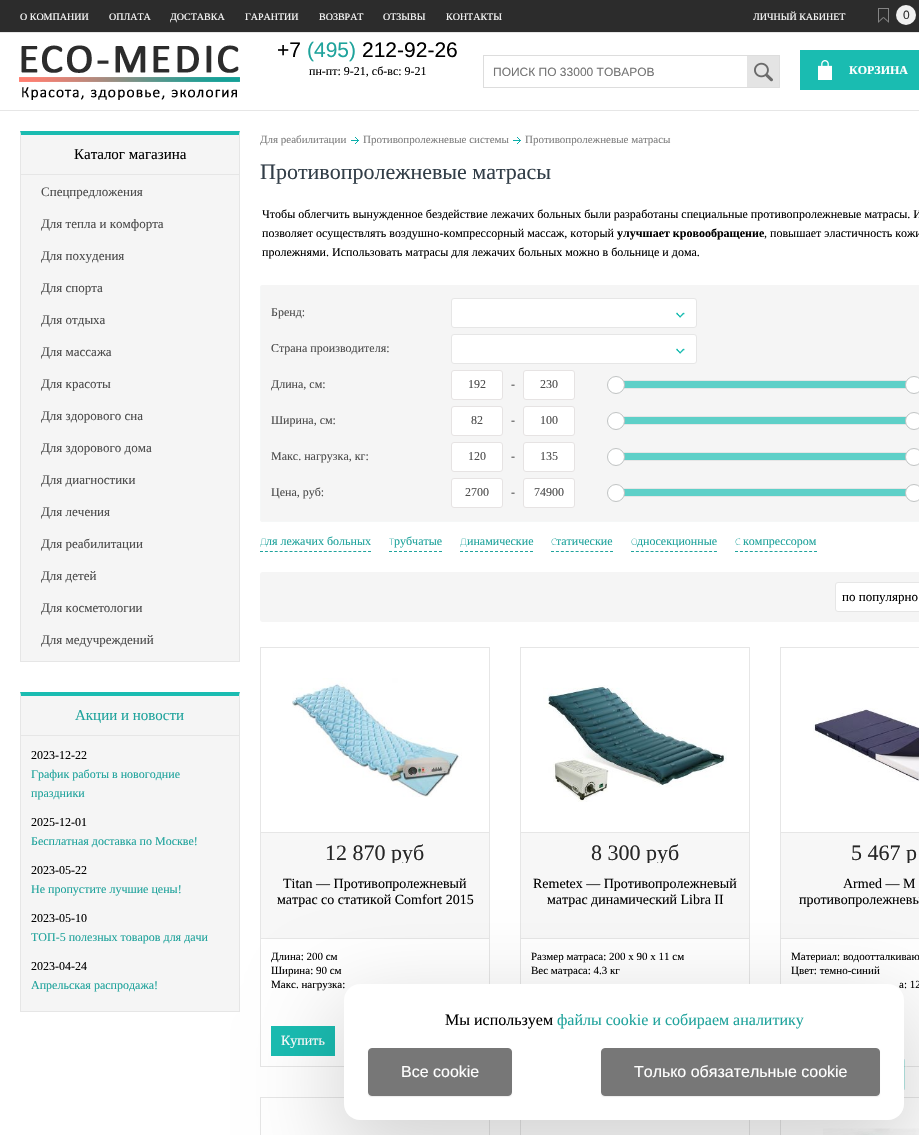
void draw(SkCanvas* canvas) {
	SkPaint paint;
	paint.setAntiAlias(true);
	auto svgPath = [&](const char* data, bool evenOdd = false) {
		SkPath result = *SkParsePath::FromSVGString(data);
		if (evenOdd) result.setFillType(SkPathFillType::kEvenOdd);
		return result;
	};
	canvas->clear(0xffffffff);
	paint.setColor(0xffe6e6e6);
	canvas->drawRect(SkRect::MakeXYWH(0, 110, 919, 1), paint);
	paint.setColor(0xff2c2c2c);
	canvas->drawRect(SkRect::MakeXYWH(0, 0, 919, 32), paint);
	paint.setColor(0xffe6e6e6);
	canvas->drawRect(SkRect::MakeXYWH(0, 32, 919, 1), paint);
	SkFont f1(fontMgr->matchFamilyStyle("Liberation Serif", SkFontStyle::Normal()), 10);
	f1.setSubpixel(true);
	paint.setColor(0xffffffff);
	canvas->drawString("О КОМПАНИИ", 20, 20, f1, paint);
	canvas->drawString("ОПЛАТА", 109, 20, f1, paint);
	canvas->drawString("ДОСТАВКА", 170, 20, f1, paint);
	canvas->drawString("ГАРАНТИИ", 245, 20, f1, paint);
	canvas->drawString("ВОЗВРАТ", 319, 20, f1, paint);
	canvas->drawString("ОТЗЫВЫ", 383, 20, f1, paint);
	canvas->drawString("КОНТАКТЫ", 446, 20, f1, paint);
	canvas->drawString("ЛИЧНЫЙ КАБИНЕТ", 753, 20, f1, paint);
	canvas->drawImageRect(SkImages::DeferredFromEncodedData(SkData::MakeFromFileName("img1.png")), SkRect::MakeXYWH(878, 8, 11, 15), SkSamplingOptions());
	paint.setColor(0xfff0f0f0);
	canvas->drawCircle(906, 15, 10, paint);
	SkFont f2(fontMgr->matchFamilyStyle("Liberation Sans", SkFontStyle::Normal()), 12);
	f2.setSubpixel(true);
	paint.setColor(0xff333333);
	canvas->drawString("0", 903, 19, f2, paint);
	canvas->drawImageRect(SkImages::DeferredFromEncodedData(SkData::MakeFromFileName("img2.png")), SkRect::MakeXYWH(19, 45, 221, 55), SkSamplingOptions());
	SkFont f3(fontMgr->matchFamilyStyle("Liberation Sans", SkFontStyle::Normal()), 21);
	f3.setSubpixel(true);
	paint.setColor(0xff000000);
	canvas->drawString("+7", 277, 57, f3, paint);
	paint.setColor(0xff1fa39c);
	canvas->drawString("(495)", 307, 57, f3, paint);
	paint.setColor(0xff000000);
	canvas->drawString("212-92-26", 362, 57, f3, paint);
	SkFont f4(fontMgr->matchFamilyStyle("Liberation Serif", SkFontStyle::Normal()), 12);
	f4.setSubpixel(true);
	canvas->drawString("пн-пт: 9-21, сб-вс: 9-21", 309, 75, f4, paint);
	paint.setStroke(true);
	paint.setStrokeWidth(1);
	paint.setColor(0xffdddddd);
	canvas->drawRect(SkRect::MakeXYWH(483.5, 55.5, 296, 32), paint);
	paint.setStroke(false);
	paint.setColor(0xff757575);
	canvas->drawString("ПОИСК ПО 33000 ТОВАРОВ", 493, 76, f2, paint);
	paint.setColor(0xccdddddd);
	canvas->drawRect(SkRect::MakeXYWH(747, 56, 32, 31), paint);
	canvas->drawImageRect(SkImages::DeferredFromEncodedData(SkData::MakeFromFileName("img3.png")), SkRect::MakeXYWH(754, 62, 19, 20), SkSamplingOptions());
	paint.setColor(0xff1abcb1);
	canvas->drawRect(SkRect::MakeXYWH(800, 50, 119, 40), paint);
	canvas->drawImageRect(SkImages::DeferredFromEncodedData(SkData::MakeFromFileName("img4.png")), SkRect::MakeXYWH(818, 60, 14, 20), SkSamplingOptions());
	SkFont f5(fontMgr->matchFamilyStyle("Liberation Serif", SkFontStyle::Bold()), 12);
	f5.setSubpixel(true);
	paint.setColor(0xffffffff);
	canvas->drawString("КОРЗИНА", 849, 74, f5, paint);
	paint.setColor(0xfff5f5f5);
	canvas->drawRect(SkRect::MakeXYWH(21, 135, 218, 526), paint);
	paint.setColor(0xff1abcb1);
	canvas->drawPath(svgPath("M20 131H240L239 135H21Z"), paint);
	paint.setColor(0xffe6e6e6);
	canvas->drawPath(svgPath("M240 131V662L239 661V135Z"), paint);
	canvas->drawRect(SkRect::MakeXYWH(20, 661, 220, 1), paint);
	canvas->drawPath(svgPath("M20 662V131L21 135V661Z"), paint);
	canvas->drawRect(SkRect::MakeXYWH(21, 174, 218, 1), paint);
	SkFont f6(fontMgr->matchFamilyStyle("Liberation Serif", SkFontStyle::Normal()), 15);
	f6.setSubpixel(true);
	paint.setColor(0xff000000);
	canvas->drawString("Каталог магазина", 74, 159, f6, paint);
	SkFont f7(fontMgr->matchFamilyStyle("Liberation Serif", SkFontStyle::Normal()), 13);
	f7.setSubpixel(true);
	paint.setColor(0xff4c4c4c);
	canvas->drawString("Спецпредложения", 41, 196, f7, paint);
	canvas->drawString("Для тепла и комфорта", 41, 228, f7, paint);
	canvas->drawString("Для похудения", 41, 260, f7, paint);
	canvas->drawString("Для спорта", 41, 292, f7, paint);
	canvas->drawString("Для отдыха", 41, 324, f7, paint);
	canvas->drawString("Для массажа", 41, 356, f7, paint);
	canvas->drawString("Для красоты", 41, 388, f7, paint);
	canvas->drawString("Для здорового сна", 41, 420, f7, paint);
	canvas->drawString("Для здорового дома", 41, 452, f7, paint);
	canvas->drawString("Для диагностики", 41, 484, f7, paint);
	canvas->drawString("Для лечения", 41, 516, f7, paint);
	canvas->drawString("Для реабилитации", 41, 548, f7, paint);
	canvas->drawString("Для детей", 41, 580, f7, paint);
	canvas->drawString("Для косметологии", 41, 612, f7, paint);
	canvas->drawString("Для медучреждений", 41, 644, f7, paint);
	paint.setColor(0xfff5f5f5);
	canvas->drawRect(SkRect::MakeXYWH(21, 696, 218, 315), paint);
	paint.setColor(0xff1abcb1);
	canvas->drawPath(svgPath("M20 692H240L239 696H21Z"), paint);
	paint.setColor(0xffe6e6e6);
	canvas->drawPath(svgPath("M240 692V1012L239 1011V696Z"), paint);
	canvas->drawRect(SkRect::MakeXYWH(20, 1011, 220, 1), paint);
	canvas->drawPath(svgPath("M20 1012V692L21 696V1011Z"), paint);
	canvas->drawRect(SkRect::MakeXYWH(21, 735, 218, 1), paint);
	paint.setColor(0xff1fa39c);
	canvas->drawString("Акции и новости", 75, 720, f6, paint);
	paint.setColor(0xff000000);
	canvas->drawString("2023-12-22", 31, 759, f4, paint);
	paint.setColor(0xff1fa39c);
	canvas->drawString("График работы в новогодние", 31, 778, f4, paint);
	canvas->drawString("праздники", 31, 797, f4, paint);
	paint.setColor(0xff000000);
	canvas->drawString("2025-12-01", 31, 826, f4, paint);
	paint.setColor(0xff1fa39c);
	canvas->drawString("Бесплатная доставка по Москве!", 31, 845, f4, paint);
	paint.setColor(0xff000000);
	canvas->drawString("2023-05-22", 31, 874, f4, paint);
	paint.setColor(0xff1fa39c);
	canvas->drawString("Не пропустите лучшие цены!", 31, 893, f4, paint);
	paint.setColor(0xff000000);
	canvas->drawString("2023-05-10", 31, 922, f4, paint);
	paint.setColor(0xff1fa39c);
	canvas->drawString("ТОП-5 полезных товаров для дачи", 31, 941, f4, paint);
	paint.setColor(0xff000000);
	canvas->drawString("2023-04-24", 31, 970, f4, paint);
	paint.setColor(0xff1fa39c);
	canvas->drawString("Апрельская распродажа!", 31, 989, f4, paint);
	SkFont f8(fontMgr->matchFamilyStyle("Liberation Serif", SkFontStyle::Normal()), 11);
	f8.setSubpixel(true);
	paint.setColor(0xff808080);
	canvas->drawString("Для реабилитации", 260, 143, f8, paint);
	canvas->drawImageRect(SkImages::DeferredFromEncodedData(SkData::MakeFromFileName("img5.png")), SkRect::MakeXYWH(351, 137, 8, 7), SkSamplingOptions());
	canvas->drawString("Противопролежневые системы", 363, 143, f8, paint);
	canvas->drawImageRect(SkImages::DeferredFromEncodedData(SkData::MakeFromFileName("img5.png")), SkRect::MakeXYWH(513, 137, 8, 7), SkSamplingOptions());
	canvas->drawString("Противопролежневые матрасы", 525, 143, f8, paint);
	SkFont f9(fontMgr->matchFamilyStyle("Liberation Serif", SkFontStyle::Normal()), 22);
	f9.setSubpixel(true);
	paint.setColor(0xff323e48);
	canvas->drawString("Противопролежневые матрасы", 260, 179, f9, paint);
	paint.setColor(0xff000000);
	canvas->drawString("Чтобы облегчить вынужденное бездействие лежачих больных были разработаны специальные противопролежневые матрасы. И", 262, 218, f4, paint);
	canvas->drawString("позволяет осуществлять воздушно-компрессорный массаж, который", 262, 237, f4, paint);
	canvas->drawString("улучшает кровообращение", 617, 237, f5, paint);
	canvas->drawString(", повышает эластичность кожи", 764, 237, f4, paint);
	canvas->drawString("пролежнями. Использовать матрасы для лежачих больных можно в больнице и дома.", 262, 256, f4, paint);
	paint.setColor(0xfff5f5f5);
	canvas->drawRoundRect(SkRect::MakeXYWH(260, 285, 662, 237), 3, 3, paint);
	paint.setColor(0xfff5f7f7);
	canvas->drawPath(svgPath("M263 285H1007C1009 285 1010 286 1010 288V519C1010 521 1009 522 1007 522H263C261 522 260 521 260 519V288C260 286 261 285 263 285ZM263 285H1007C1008 285 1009 286 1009 288V519C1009 520 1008 521 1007 521H263C262 521 261 520 261 519V288C261 286 262 285 263 285Z", true), paint);
	paint.setColor(0xff4c4c4c);
	canvas->drawString("Бренд:", 271, 316, f4, paint);
	paint.setColor(0xffffffff);
	canvas->drawRoundRect(SkRect::MakeXYWH(451.5, 298.5, 245, 29), 2.5, 2.5, paint);
	paint.setStroke(true);
	paint.setColor(0xffe6e6e6);
	canvas->drawRoundRect(SkRect::MakeXYWH(451.5, 298.5, 245, 29), 2.5, 2.5, paint);
	canvas->drawImageRect(SkImages::DeferredFromEncodedData(SkData::MakeFromFileName("img6.png")), SkRect::MakeXYWH(676, 312, 9, 6), SkSamplingOptions());
	paint.setStroke(false);
	paint.setColor(0xff4c4c4c);
	canvas->drawString("Страна производителя:", 271, 352, f4, paint);
	paint.setColor(0xffffffff);
	canvas->drawRoundRect(SkRect::MakeXYWH(451.5, 334.5, 245, 29), 2.5, 2.5, paint);
	paint.setStroke(true);
	paint.setColor(0xffe6e6e6);
	canvas->drawRoundRect(SkRect::MakeXYWH(451.5, 334.5, 245, 29), 2.5, 2.5, paint);
	canvas->drawImageRect(SkImages::DeferredFromEncodedData(SkData::MakeFromFileName("img6.png")), SkRect::MakeXYWH(676, 348, 9, 6), SkSamplingOptions());
	paint.setStroke(false);
	paint.setColor(0xff4c4c4c);
	canvas->drawString("Длина, см:", 271, 388, f4, paint);
	paint.setColor(0xffffffff);
	canvas->drawRoundRect(SkRect::MakeXYWH(451.5, 370.5, 51, 29), 2.5, 2.5, paint);
	paint.setStroke(true);
	paint.setColor(0xffe6e3e3);
	canvas->drawRoundRect(SkRect::MakeXYWH(451.5, 370.5, 51, 29), 2.5, 2.5, paint);
	paint.setStroke(false);
	paint.setColor(0xff4c4c4c);
	canvas->drawString("192", 468, 388, f4, paint);
	canvas->drawString("-", 511, 388, f4, paint);
	paint.setColor(0xffffffff);
	canvas->drawRoundRect(SkRect::MakeXYWH(523.5, 370.5, 51, 29), 2.5, 2.5, paint);
	paint.setStroke(true);
	paint.setColor(0xffe6e3e3);
	canvas->drawRoundRect(SkRect::MakeXYWH(523.5, 370.5, 51, 29), 2.5, 2.5, paint);
	paint.setStroke(false);
	paint.setColor(0xff4c4c4c);
	canvas->drawString("230", 540, 388, f4, paint);
	paint.setColor(0xffffffff);
	canvas->drawRect(SkRect::MakeXYWH(624, 381, 282, 7), paint);
	paint.setStroke(true);
	paint.setColor(0xffe6e6e6);
	canvas->drawRect(SkRect::MakeXYWH(615.5, 380.5, 299, 8), paint);
	paint.setStroke(false);
	paint.setColor(0xb31abcb1);
	canvas->drawRect(SkRect::MakeXYWH(616, 381, 298, 7), paint);
	paint.setColor(0xffffffff);
	canvas->drawCircle(616, 385, 8.5, paint);
	paint.setStroke(true);
	paint.setColor(0xffc0c3c3);
	canvas->drawCircle(616, 385, 8.5, paint);
	paint.setStroke(false);
	paint.setColor(0xffffffff);
	canvas->drawCircle(914, 385, 8.5, paint);
	paint.setStroke(true);
	paint.setColor(0xffc0c3c3);
	canvas->drawCircle(914, 385, 8.5, paint);
	paint.setStroke(false);
	paint.setColor(0xff4c4c4c);
	canvas->drawString("Ширина, см:", 271, 424, f4, paint);
	paint.setColor(0xffffffff);
	canvas->drawRoundRect(SkRect::MakeXYWH(451.5, 406.5, 51, 29), 2.5, 2.5, paint);
	paint.setStroke(true);
	paint.setColor(0xffe6e3e3);
	canvas->drawRoundRect(SkRect::MakeXYWH(451.5, 406.5, 51, 29), 2.5, 2.5, paint);
	paint.setStroke(false);
	paint.setColor(0xff4c4c4c);
	canvas->drawString("82", 471, 424, f4, paint);
	canvas->drawString("-", 511, 424, f4, paint);
	paint.setColor(0xffffffff);
	canvas->drawRoundRect(SkRect::MakeXYWH(523.5, 406.5, 51, 29), 2.5, 2.5, paint);
	paint.setStroke(true);
	paint.setColor(0xffe6e3e3);
	canvas->drawRoundRect(SkRect::MakeXYWH(523.5, 406.5, 51, 29), 2.5, 2.5, paint);
	paint.setStroke(false);
	paint.setColor(0xff4c4c4c);
	canvas->drawString("100", 540, 424, f4, paint);
	paint.setColor(0xffffffff);
	canvas->drawRect(SkRect::MakeXYWH(624, 417, 282, 7), paint);
	paint.setStroke(true);
	paint.setColor(0xffe6e6e6);
	canvas->drawRect(SkRect::MakeXYWH(615.5, 416.5, 299, 8), paint);
	paint.setStroke(false);
	paint.setColor(0xb31abcb1);
	canvas->drawRect(SkRect::MakeXYWH(616, 417, 298, 7), paint);
	paint.setColor(0xffffffff);
	canvas->drawCircle(616, 421, 8.5, paint);
	paint.setStroke(true);
	paint.setColor(0xffc0c3c3);
	canvas->drawCircle(616, 421, 8.5, paint);
	paint.setStroke(false);
	paint.setColor(0xffffffff);
	canvas->drawCircle(914, 421, 8.5, paint);
	paint.setStroke(true);
	paint.setColor(0xffc0c3c3);
	canvas->drawCircle(914, 421, 8.5, paint);
	paint.setStroke(false);
	paint.setColor(0xff4c4c4c);
	canvas->drawString("Макс. нагрузка, кг:", 271, 460, f4, paint);
	paint.setColor(0xffffffff);
	canvas->drawRoundRect(SkRect::MakeXYWH(451.5, 442.5, 51, 29), 2.5, 2.5, paint);
	paint.setStroke(true);
	paint.setColor(0xffe6e3e3);
	canvas->drawRoundRect(SkRect::MakeXYWH(451.5, 442.5, 51, 29), 2.5, 2.5, paint);
	paint.setStroke(false);
	paint.setColor(0xff4c4c4c);
	canvas->drawString("120", 468, 460, f4, paint);
	canvas->drawString("-", 511, 460, f4, paint);
	paint.setColor(0xffffffff);
	canvas->drawRoundRect(SkRect::MakeXYWH(523.5, 442.5, 51, 29), 2.5, 2.5, paint);
	paint.setStroke(true);
	paint.setColor(0xffe6e3e3);
	canvas->drawRoundRect(SkRect::MakeXYWH(523.5, 442.5, 51, 29), 2.5, 2.5, paint);
	paint.setStroke(false);
	paint.setColor(0xff4c4c4c);
	canvas->drawString("135", 540, 460, f4, paint);
	paint.setColor(0xffffffff);
	canvas->drawRect(SkRect::MakeXYWH(624, 453, 282, 7), paint);
	paint.setStroke(true);
	paint.setColor(0xffe6e6e6);
	canvas->drawRect(SkRect::MakeXYWH(615.5, 452.5, 299, 8), paint);
	paint.setStroke(false);
	paint.setColor(0xb31abcb1);
	canvas->drawRect(SkRect::MakeXYWH(616, 453, 298, 7), paint);
	paint.setColor(0xffffffff);
	canvas->drawCircle(616, 457, 8.5, paint);
	paint.setStroke(true);
	paint.setColor(0xffc0c3c3);
	canvas->drawCircle(616, 457, 8.5, paint);
	paint.setStroke(false);
	paint.setColor(0xffffffff);
	canvas->drawCircle(914, 457, 8.5, paint);
	paint.setStroke(true);
	paint.setColor(0xffc0c3c3);
	canvas->drawCircle(914, 457, 8.5, paint);
	paint.setStroke(false);
	paint.setColor(0xff4c4c4c);
	canvas->drawString("Цена, руб:", 271, 496, f4, paint);
	paint.setColor(0xffffffff);
	canvas->drawRoundRect(SkRect::MakeXYWH(451.5, 478.5, 51, 29), 2.5, 2.5, paint);
	paint.setStroke(true);
	paint.setColor(0xffe6e3e3);
	canvas->drawRoundRect(SkRect::MakeXYWH(451.5, 478.5, 51, 29), 2.5, 2.5, paint);
	paint.setStroke(false);
	paint.setColor(0xff4c4c4c);
	canvas->drawString("2700", 465, 496, f4, paint);
	canvas->drawString("-", 511, 496, f4, paint);
	paint.setColor(0xffffffff);
	canvas->drawRoundRect(SkRect::MakeXYWH(523.5, 478.5, 51, 29), 2.5, 2.5, paint);
	paint.setStroke(true);
	paint.setColor(0xffe6e3e3);
	canvas->drawRoundRect(SkRect::MakeXYWH(523.5, 478.5, 51, 29), 2.5, 2.5, paint);
	paint.setStroke(false);
	paint.setColor(0xff4c4c4c);
	canvas->drawString("74900", 534, 496, f4, paint);
	paint.setColor(0xffffffff);
	canvas->drawRect(SkRect::MakeXYWH(624, 489, 282, 7), paint);
	paint.setStroke(true);
	paint.setColor(0xffe6e6e6);
	canvas->drawRect(SkRect::MakeXYWH(615.5, 488.5, 299, 8), paint);
	paint.setStroke(false);
	paint.setColor(0xb31abcb1);
	canvas->drawRect(SkRect::MakeXYWH(616, 489, 298, 7), paint);
	paint.setColor(0xffffffff);
	canvas->drawCircle(616, 493, 8.5, paint);
	paint.setStroke(true);
	paint.setColor(0xffc0c3c3);
	canvas->drawCircle(616, 493, 8.5, paint);
	paint.setStroke(false);
	paint.setColor(0xffffffff);
	canvas->drawCircle(914, 493, 8.5, paint);
	paint.setStroke(true);
	paint.setColor(0xffc0c3c3);
	canvas->drawCircle(914, 493, 8.5, paint);
	paint.setColor(0xff1fa39c);
	paint.setPathEffect(SkDashPathEffect::Make({{3, 1.91f}}, 0));
	canvas->drawPath(svgPath("M260 551.5H371"), paint);
	paint.setPathEffect(nullptr);
	SkFont f10(fontMgr->matchFamilyStyle("Noto Sans", SkFontStyle(100, SkFontStyle::kNormal_Width, SkFontStyle::kUpright_Slant)), 12);
	f10.setSubpixel(true);
	paint.setStroke(false);
	canvas->drawString("д", 260, 545, f10, paint);
	canvas->drawString("ля лежачих больных", 266, 545, f4, paint);
	paint.setStroke(true);
	paint.setPathEffect(SkDashPathEffect::Make({{3, 2}}, 0));
	canvas->drawPath(svgPath("M389 551.5H442"), paint);
	paint.setPathEffect(nullptr);
	SkFont f11(fontMgr->matchFamilyStyle("Noto Sans", SkFontStyle(200, SkFontStyle::kNormal_Width, SkFontStyle::kUpright_Slant)), 12);
	f11.setSubpixel(true);
	paint.setStroke(false);
	canvas->drawString("т", 389, 545, f11, paint);
	canvas->drawString("рубчатые", 394, 545, f4, paint);
	paint.setStroke(true);
	paint.setPathEffect(SkDashPathEffect::Make({{3, 2}}, 0));
	canvas->drawPath(svgPath("M460 551.5H533"), paint);
	paint.setPathEffect(nullptr);
	paint.setStroke(false);
	canvas->drawString("д", 460, 545, f10, paint);
	canvas->drawString("инамические", 467, 545, f4, paint);
	paint.setStroke(true);
	paint.setPathEffect(SkDashPathEffect::Make({{3, 1.92f}}, 0));
	canvas->drawPath(svgPath("M551 551.5H613"), paint);
	paint.setPathEffect(nullptr);
	paint.setStroke(false);
	canvas->drawString("с", 551, 545, f10, paint);
	canvas->drawString("татические", 556, 545, f4, paint);
	paint.setStroke(true);
	paint.setPathEffect(SkDashPathEffect::Make({{3, 1.88f}}, 0));
	canvas->drawPath(svgPath("M631 551.5H717"), paint);
	paint.setPathEffect(nullptr);
	paint.setStroke(false);
	canvas->drawString("о", 631, 545, f10, paint);
	canvas->drawString("дносекционные", 637, 545, f4, paint);
	paint.setStroke(true);
	paint.setPathEffect(SkDashPathEffect::Make({{3, 1.94f}}, 0));
	canvas->drawPath(svgPath("M735 551.5H817"), paint);
	paint.setPathEffect(nullptr);
	paint.setStroke(false);
	canvas->drawString("с", 735, 545, f10, paint);
	canvas->drawString("компрессором", 743, 545, f4, paint);
	paint.setColor(0xfff5f5f5);
	canvas->drawRoundRect(SkRect::MakeXYWH(260, 572, 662, 50), 3, 3, paint);
	paint.setColor(0xffffffff);
	canvas->drawRoundRect(SkRect::MakeXYWH(835.5, 582.5, 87, 29), 2.5, 2.5, paint);
	paint.setStroke(true);
	paint.setColor(0xffe6e6e6);
	canvas->drawRoundRect(SkRect::MakeXYWH(835.5, 582.5, 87, 29), 2.5, 2.5, paint);
	paint.setStroke(false);
	paint.setColor(0xff000000);
	canvas->drawString("по популярно", 842, 601, f7, paint);
	paint.setStroke(true);
	paint.setColor(0xffe6e6e6);
	canvas->drawRect(SkRect::MakeXYWH(260.5, 647.5, 229, 419), paint);
	canvas->drawImageRect(SkImages::DeferredFromEncodedData(SkData::MakeFromFileName("img7.png")), SkRect::MakeXYWH(292, 678, 170, 119), SkSamplingOptions());
	paint.setStroke(false);
	paint.setColor(0xfff7f7f7);
	canvas->drawRect(SkRect::MakeXYWH(261, 833, 228, 30), paint);
	paint.setColor(0xffe6e6e6);
	canvas->drawRect(SkRect::MakeXYWH(261, 832, 228, 1), paint);
	paint.setColor(0xff262626);
	canvas->drawString("12 870 руб", 325, 860, f9, paint);
	paint.setColor(0xfff7f7f7);
	canvas->drawRect(SkRect::MakeXYWH(261, 863, 228, 75), paint);
	paint.setColor(0xffe6e6e6);
	canvas->drawRect(SkRect::MakeXYWH(261, 938, 228, 1), paint);
	SkFont f12(fontMgr->matchFamilyStyle("Liberation Serif", SkFontStyle::Normal()), 14);
	f12.setSubpixel(true);
	paint.setColor(0xff000000);
	canvas->drawString("Titan — Противопролежневый", 283, 888, f12, paint);
	canvas->drawString("матрас со статикой Comfort 2015", 277, 904, f12, paint);
	canvas->drawString("Длина: 200 см", 271, 960, f8, paint);
	canvas->drawString("Ширина: 90 см", 271, 974, f8, paint);
	canvas->drawString("Макс. нагрузка:", 271, 988, f8, paint);
	paint.setColor(0xff1abcb1);
	canvas->drawRect(SkRect::MakeXYWH(271, 1026, 64, 30), paint);
	paint.setColor(0xffffffff);
	canvas->drawString("Купить", 281, 1045, f12, paint);
	paint.setStroke(true);
	paint.setColor(0xffe6e6e6);
	canvas->drawRect(SkRect::MakeXYWH(520.5, 647.5, 229, 419), paint);
	canvas->drawImageRect(SkImages::DeferredFromEncodedData(SkData::MakeFromFileName("img8.png")), SkRect::MakeXYWH(543, 685, 184, 117), SkSamplingOptions());
	paint.setStroke(false);
	paint.setColor(0xfff7f7f7);
	canvas->drawRect(SkRect::MakeXYWH(521, 833, 228, 30), paint);
	paint.setColor(0xffe6e6e6);
	canvas->drawRect(SkRect::MakeXYWH(521, 832, 228, 1), paint);
	paint.setColor(0xff262626);
	canvas->drawString("8 300 руб", 591, 860, f9, paint);
	paint.setColor(0xfff7f7f7);
	canvas->drawRect(SkRect::MakeXYWH(521, 863, 228, 75), paint);
	paint.setColor(0xffe6e6e6);
	canvas->drawRect(SkRect::MakeXYWH(521, 938, 228, 1), paint);
	paint.setColor(0xff000000);
	canvas->drawString("Remetex — Противопролежневый", 533, 888, f12, paint);
	canvas->drawString("матрас динамический Libra II", 547, 904, f12, paint);
	canvas->drawString("Размер матраса: 200 х 90 х 11 см", 531, 960, f8, paint);
	canvas->drawString("Вес матраса: 4.3 кг", 531, 974, f8, paint);
	paint.setStroke(true);
	paint.setColor(0xffe6e6e6);
	canvas->drawRect(SkRect::MakeXYWH(780.5, 647.5, 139, 419), paint);
	canvas->drawImageRect(SkImages::DeferredFromEncodedData(SkData::MakeFromFileName("img9.png")), SkRect::MakeXYWH(813, 708, 106, 74), SkSamplingOptions());
	paint.setStroke(false);
	paint.setColor(0xfff7f7f7);
	canvas->drawRect(SkRect::MakeXYWH(781, 833, 138, 30), paint);
	paint.setColor(0xffe6e6e6);
	canvas->drawRect(SkRect::MakeXYWH(781, 832, 138, 1), paint);
	paint.setColor(0xff262626);
	canvas->drawString("5 467 р", 851, 860, f9, paint);
	paint.setColor(0xfff7f7f7);
	canvas->drawRect(SkRect::MakeXYWH(781, 863, 138, 75), paint);
	paint.setColor(0xffe6e6e6);
	canvas->drawRect(SkRect::MakeXYWH(781, 938, 138, 1), paint);
	paint.setColor(0xff000000);
	canvas->drawString("Armed — М", 843, 888, f12, paint);
	canvas->drawString("противопролежневы", 799, 904, f12, paint);
	canvas->drawString("Материал: водоотталкиваю", 791, 960, f8, paint);
	canvas->drawString("Цвет: темно-синий", 791, 974, f8, paint);
	canvas->drawString("а: 12", 899, 988, f8, paint);
	paint.setStroke(true);
	paint.setColor(0xffe6e6e6);
	canvas->drawRect(SkRect::MakeXYWH(260.5, 1097.5, 229, 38), paint);
	canvas->drawRect(SkRect::MakeXYWH(520.5, 1097.5, 229, 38), paint);
	canvas->drawRect(SkRect::MakeXYWH(780.5, 1097.5, 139, 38), paint);
	canvas->drawImageRect(SkImages::DeferredFromEncodedData(SkData::MakeFromFileName("img10.png")), SkRect::MakeXYWH(823, 1128, 96, 7), SkSamplingOptions());
	canvas->drawImageRect(SkImages::DeferredFromEncodedData(SkData::MakeFromFileName("img11.png")), SkRect::MakeXYWH(904, 1058, 3, 33), SkSamplingOptions());
	paint.setStroke(false);
	paint.setColor(0x2b000000);
	paint.setMaskFilter(SkMaskFilter::MakeBlur(kNormal_SkBlurStyle, 44));
	canvas->drawRoundRect(SkRect::MakeXYWH(336, 1006, 576, 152), 24, 24, paint);
	paint.setMaskFilter(nullptr);
	paint.setColor(0xffffffff);
	canvas->drawRoundRect(SkRect::MakeXYWH(344, 984, 560, 136), 16, 16, paint);
	SkFont f13(fontMgr->matchFamilyStyle("Liberation Serif", SkFontStyle::Normal()), 16);
	f13.setSubpixel(true);
	paint.setColor(0xff000000);
	canvas->drawString("Мы используем", 445, 1025, f13, paint);
	paint.setColor(0xff1fa39c);
	canvas->drawString("файлы cookie и собираем аналитику", 557, 1025, f13, paint);
	paint.setColor(0x12000000);
	paint.setMaskFilter(SkMaskFilter::MakeBlur(kNormal_SkBlurStyle, 0.5));
	canvas->drawRoundRect(SkRect::MakeXYWH(368, 1049, 144, 48), 4, 4, paint);
	paint.setMaskFilter(nullptr);
	paint.setColor(0xff777777);
	canvas->drawRoundRect(SkRect::MakeXYWH(368.5, 1048.5, 143, 47), 3.5, 3.5, paint);
	paint.setStroke(true);
	canvas->drawRoundRect(SkRect::MakeXYWH(368.5, 1048.5, 143, 47), 3.5, 3.5, paint);
	SkFont f14(fontMgr->matchFamilyStyle("Liberation Sans", SkFontStyle::Normal()), 16);
	f14.setSubpixel(true);
	paint.setStroke(false);
	paint.setColor(0xffffffff);
	canvas->drawString("Все cookie", 401, 1077, f14, paint);
	paint.setColor(0x12000000);
	paint.setMaskFilter(SkMaskFilter::MakeBlur(kNormal_SkBlurStyle, 0.5));
	canvas->drawRoundRect(SkRect::MakeXYWH(601, 1049, 279, 48), 4, 4, paint);
	paint.setMaskFilter(nullptr);
	paint.setColor(0xff777777);
	canvas->drawRoundRect(SkRect::MakeXYWH(601.5, 1048.5, 278, 47), 3.5, 3.5, paint);
	paint.setStroke(true);
	canvas->drawRoundRect(SkRect::MakeXYWH(601.5, 1048.5, 278, 47), 3.5, 3.5, paint);
	paint.setStroke(false);
	paint.setColor(0xffffffff);
	canvas->drawString("Только обязательные cookie", 634, 1077, f14, paint);
}
